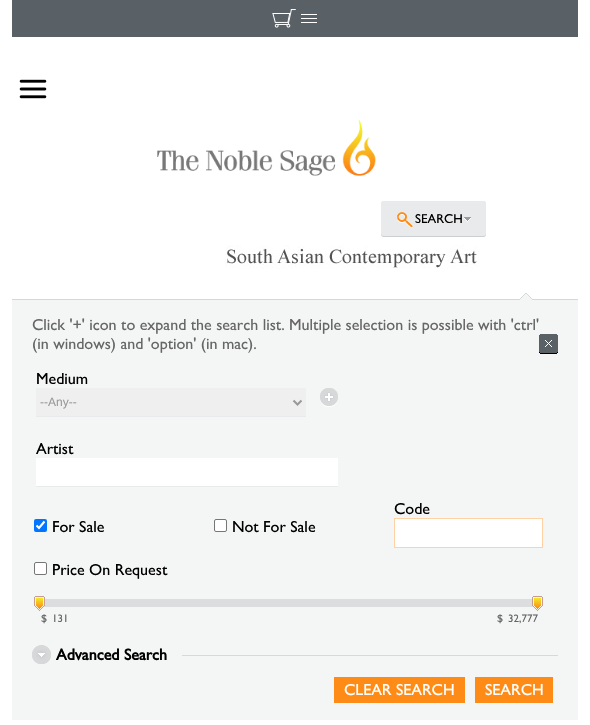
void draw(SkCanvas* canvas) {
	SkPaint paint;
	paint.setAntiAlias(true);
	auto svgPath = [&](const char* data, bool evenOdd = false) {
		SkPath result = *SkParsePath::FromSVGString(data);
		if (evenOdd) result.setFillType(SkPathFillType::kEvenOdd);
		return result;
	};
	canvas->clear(0xffffffff);
	paint.setColor(0xff596066);
	canvas->drawRect(SkRect::MakeXYWH(12, 0, 566, 37), paint);
	canvas->drawImageRect(SkImages::DeferredFromEncodedData(SkData::MakeFromFileName("img1.png")), SkRect::MakeXYWH(272, 9, 45, 19), SkSamplingOptions());
	paint.setColor(0xffd5d8db);
	canvas->drawRect(SkRect::MakeXYWH(12, 299, 566, 1), paint);
	canvas->drawImageRect(SkImages::DeferredFromEncodedData(SkData::MakeFromFileName("img2.png")), SkRect::MakeXYWH(19, 79, 28, 20), SkSamplingOptions());
	canvas->drawImageRect(SkImages::DeferredFromEncodedData(SkData::MakeFromFileName("img3.png")), SkRect::MakeXYWH(157, 119, 219, 57), SkSamplingOptions());
	canvas->drawImageRect(SkImages::DeferredFromEncodedData(SkData::MakeFromFileName("img4.png")), SkRect::MakeXYWH(381, 201, 105, 36), SkSamplingOptions());
	SkFont f1(fontMgr->matchFamilyStyle("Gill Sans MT", SkFontStyle::Normal()), 13);
	f1.setSubpixel(true);
	paint.setColor(0xff000000);
	canvas->drawString("SEARCH", 415, 223, f1, paint);
	canvas->drawImageRect(SkImages::DeferredFromEncodedData(SkData::MakeFromFileName("img5.png")), SkRect::MakeXYWH(225, 245, 254, 24), SkSamplingOptions());
	paint.setColor(0xfff4f5f5);
	canvas->drawRect(SkRect::MakeXYWH(12, 300, 566, 420), paint);
	canvas->drawImageRect(SkImages::DeferredFromEncodedData(SkData::MakeFromFileName("img6.png")), SkRect::MakeXYWH(520, 293, 12, 7), SkSamplingOptions());
	SkFont f2(fontMgr->matchFamilyStyle("Gill Sans MT", SkFontStyle::Normal()), 16);
	f2.setSubpixel(true);
	paint.setColor(0xff666666);
	canvas->drawString("Click '+' icon to expand the search list. Multiple selection is possible with 'ctrl'", 32, 330, f2, paint);
	canvas->drawString("(in windows) and 'option' (in mac).", 32, 349, f2, paint);
	canvas->drawImageRect(SkImages::DeferredFromEncodedData(SkData::MakeFromFileName("img7.png")), SkRect::MakeXYWH(539, 334, 19, 20), SkSamplingOptions());
	paint.setColor(0xff000000);
	canvas->drawString("Medium", 36, 384, f2, paint);
	paint.setColor(0xffefefef);
	canvas->drawRect(SkRect::MakeXYWH(36, 388, 270, 28), paint);
	paint.setColor(0xffe9eaeb);
	canvas->drawRect(SkRect::MakeXYWH(36, 416, 270, 1), paint);
	paint.setStroke(true);
	paint.setStrokeWidth(2);
	paint.setColor(0xff999999);
	canvas->drawPath(svgPath("M293.5 400.5L297.5 404.5L301.5 400.5"), paint);
	SkFont f3(fontMgr->matchFamilyStyle("Liberation Sans", SkFontStyle::Normal()), 12);
	f3.setSubpixel(true);
	paint.setStroke(false);
	canvas->drawString("--Any--", 40, 406, f3, paint);
	canvas->drawImageRect(SkImages::DeferredFromEncodedData(SkData::MakeFromFileName("img8.png")), SkRect::MakeXYWH(320, 388, 18, 19), SkSamplingOptions());
	paint.setColor(0xff000000);
	canvas->drawString("Artist", 36, 454, f2, paint);
	paint.setColor(0xffffffff);
	canvas->drawRect(SkRect::MakeXYWH(36, 458, 302, 28), paint);
	paint.setColor(0xffe9eaeb);
	canvas->drawRect(SkRect::MakeXYWH(36, 486, 302, 1), paint);
	paint.setColor(0xff000000);
	canvas->drawString("Code", 394, 514, f2, paint);
	paint.setColor(0xffffffff);
	canvas->drawRect(SkRect::MakeXYWH(394.5, 518.5, 148, 29), paint);
	paint.setStroke(true);
	paint.setStrokeWidth(1);
	paint.setColor(0xffffd1a4);
	canvas->drawRect(SkRect::MakeXYWH(394.5, 518.5, 148, 29), paint);
	paint.setStroke(false);
	paint.setColor(0xff0075ff);
	canvas->drawRoundRect(SkRect::MakeXYWH(34, 519, 13, 13), 2, 2, paint);
	paint.setStroke(true);
	paint.setStrokeWidth(2.1);
	paint.setColor(0xffffffff);
	canvas->drawPath(svgPath("M36.5 525.5L39 528L44.5 521.5"), paint);
	paint.setStroke(false);
	paint.setColor(0xff000000);
	canvas->drawString("For Sale", 52, 532, f2, paint);
	paint.setColor(0xffffffff);
	canvas->drawRoundRect(SkRect::MakeXYWH(214.5, 519.5, 12, 12), 1.5, 1.5, paint);
	paint.setStroke(true);
	paint.setStrokeWidth(1);
	paint.setColor(0xff767676);
	canvas->drawRoundRect(SkRect::MakeXYWH(214.5, 519.5, 12, 12), 1.5, 1.5, paint);
	paint.setStroke(false);
	paint.setColor(0xff000000);
	canvas->drawString("Not For Sale", 232, 532, f2, paint);
	paint.setColor(0xffffffff);
	canvas->drawRoundRect(SkRect::MakeXYWH(34.5, 562.5, 12, 12), 1.5, 1.5, paint);
	paint.setStroke(true);
	paint.setColor(0xff767676);
	canvas->drawRoundRect(SkRect::MakeXYWH(34.5, 562.5, 12, 12), 1.5, 1.5, paint);
	paint.setStroke(false);
	paint.setColor(0xff000000);
	canvas->drawString("Price On Request", 52, 575, f2, paint);
	paint.setColor(0xffdcddde);
	canvas->drawRect(SkRect::MakeXYWH(41, 599, 497, 8), paint);
	canvas->drawImageRect(SkImages::DeferredFromEncodedData(SkData::MakeFromFileName("img9.png")), SkRect::MakeXYWH(34, 596, 11, 15), SkSamplingOptions());
	canvas->drawImageRect(SkImages::DeferredFromEncodedData(SkData::MakeFromFileName("img10.png")), SkRect::MakeXYWH(532, 596, 11, 15), SkSamplingOptions());
	SkFont f4(fontMgr->matchFamilyStyle("Gill Sans MT", SkFontStyle::Normal()), 11);
	f4.setSubpixel(true);
	paint.setColor(0xff666666);
	canvas->drawString("$", 41, 622, f4, paint);
	canvas->drawString("131", 52, 622, f4, paint);
	canvas->drawString("$", 497, 622, f4, paint);
	canvas->drawString("32,777", 508, 622, f4, paint);
	paint.setColor(0xffd7d9d8);
	canvas->drawRect(SkRect::MakeXYWH(182, 655, 376, 1), paint);
	canvas->drawImageRect(SkImages::DeferredFromEncodedData(SkData::MakeFromFileName("img11.png")), SkRect::MakeXYWH(32, 645, 19, 19), SkSamplingOptions());
	SkFont f5(fontMgr->matchFamilyStyle("Gill Sans MT", SkFontStyle::Bold()), 16);
	f5.setSubpixel(true);
	paint.setColor(0xff000000);
	canvas->drawString("Advanced Search", 56, 660, f5, paint);
	paint.setColor(0xfffe8b16);
	canvas->drawRect(SkRect::MakeXYWH(334, 677, 131, 26), paint);
	paint.setColor(0xffffffff);
	canvas->drawString("CLEAR SEARCH", 344, 695, f2, paint);
	paint.setColor(0xfffe8b16);
	canvas->drawRect(SkRect::MakeXYWH(475, 677, 78, 26), paint);
	paint.setColor(0xffffffff);
	canvas->drawString("SEARCH", 485, 695, f2, paint);
}
